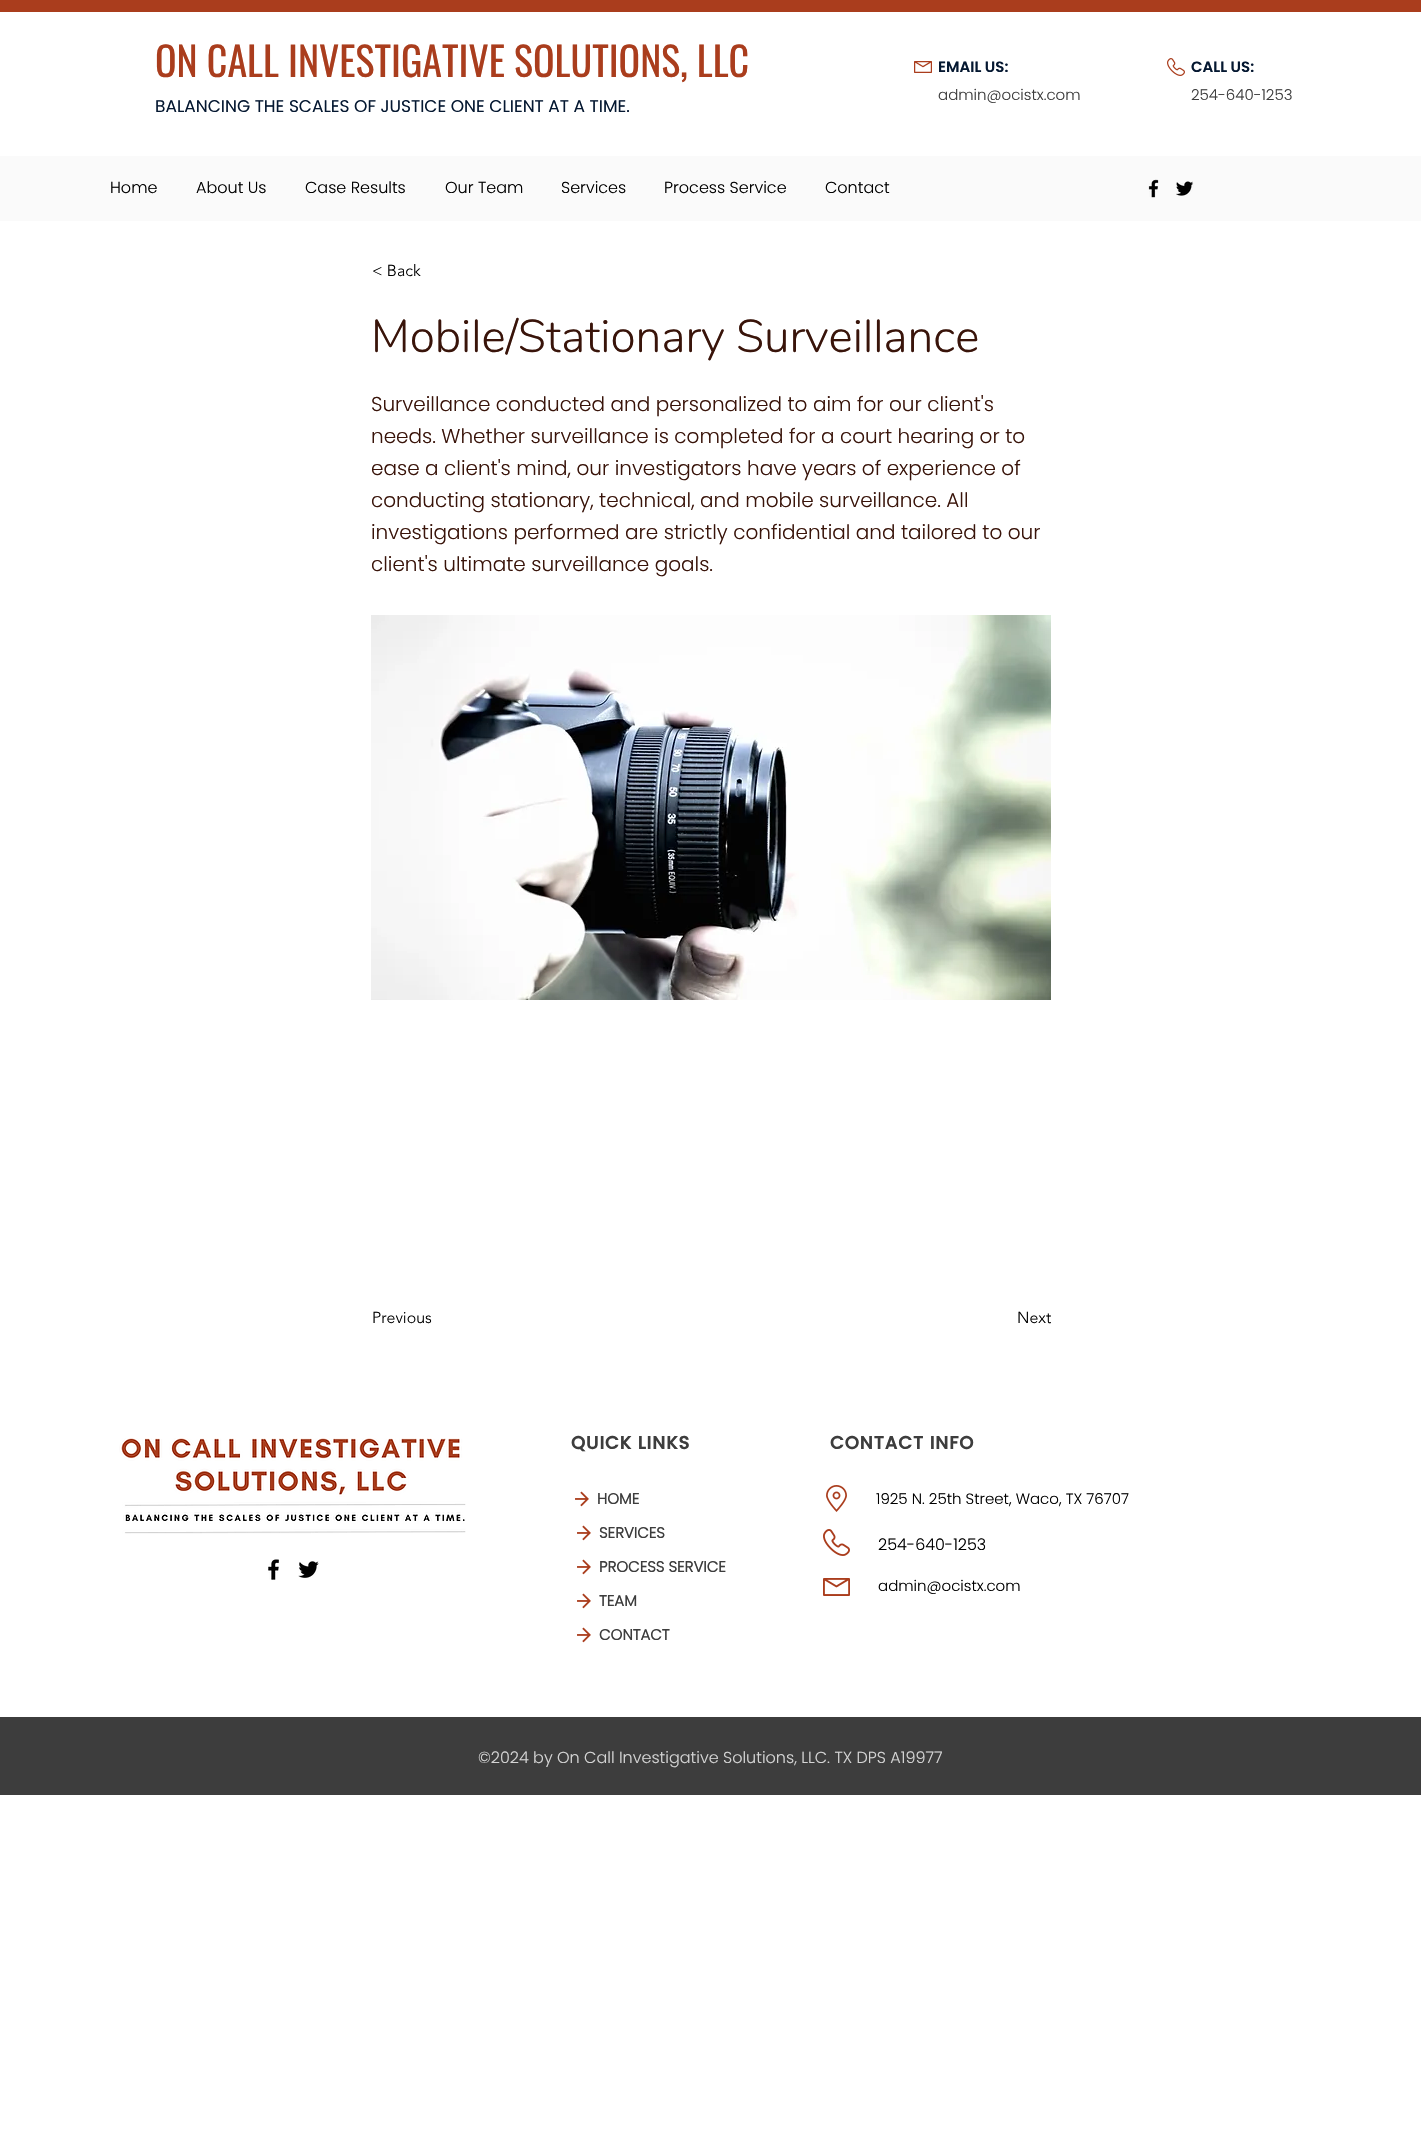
void draw(SkCanvas* canvas) {
	SkPaint paint;
	paint.setAntiAlias(true);
	auto spacedText = [&](const char* s, float x, float y, const SkFont& font, const SkPaint& ink, float letter, float word) {
		std::vector<SkGlyphID> glyphs(font.countText(s, strlen(s), SkTextEncoding::kUTF8));
		std::vector<float> xs(glyphs.size());
		font.textToGlyphs(s, strlen(s), SkTextEncoding::kUTF8, glyphs);
		font.getXPos(glyphs, xs, x);
		float extra = 0;
		for (size_t i = 0; i < glyphs.size(); i++) {
			xs[i] += extra;
			extra += letter + word * (glyphs[i] == font.unicharToGlyph(' '));
		}
		canvas->drawTextBlob(SkTextBlob::MakeFromPosHGlyphs(glyphs, xs, y, font), 0, 0, ink);
	};
	canvas->clear(0xffffffff);
	paint.setColor(0xffaa3d1d);
	canvas->drawRect(SkRect::MakeXYWH(0, 0, 1421, 12), paint);
	SkFont f1(fontMgr->matchFamilyStyle("Oswald", SkFontStyle::Normal()), 40);
	f1.setSubpixel(true);
	canvas->drawString("ON CALL INVESTIGATIVE SOLUTIONS, LLC", 155, 77, f1, paint);
	SkFont f2(fontMgr->matchFamilyStyle("Poppins", SkFontStyle::Normal()), 17);
	f2.setSubpixel(true);
	paint.setColor(0xff051831);
	canvas->drawString("BALANCING THE SCALES OF JUSTICE ONE CLIENT AT A TIME.", 155, 112, f2, paint);
	canvas->drawImageRect(SkImages::DeferredFromEncodedData(SkData::MakeFromFileName("img1.png")), SkRect::MakeXYWH(914, 61, 18, 12), SkSamplingOptions());
	SkFont f3(fontMgr->matchFamilyStyle("Poppins", SkFontStyle(600, SkFontStyle::kNormal_Width, SkFontStyle::kUpright_Slant)), 15);
	f3.setSubpixel(true);
	canvas->drawString("EMAIL US:", 938, 72, f3, paint);
	SkFont f4(fontMgr->matchFamilyStyle("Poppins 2", SkFontStyle(300, SkFontStyle::kNormal_Width, SkFontStyle::kUpright_Slant)), 15);
	f4.setSubpixel(true);
	paint.setColor(0xff3d3d3d);
	canvas->drawString("admin@ocistx.com", 938, 100, f4, paint);
	canvas->drawImageRect(SkImages::DeferredFromEncodedData(SkData::MakeFromFileName("img2.png")), SkRect::MakeXYWH(1167, 58, 18, 18), SkSamplingOptions());
	paint.setColor(0xff051831);
	canvas->drawString("CALL US:", 1191, 72, f3, paint);
	paint.setColor(0xff3d3d3d);
	canvas->drawString("254-640-1253", 1191, 100, f4, paint);
	paint.setColor(0xfffafafa);
	canvas->drawRect(SkRect::MakeXYWH(0, 156, 1421, 65), paint);
	SkFont f5(fontMgr->matchFamilyStyle("Poppins 2", SkFontStyle(300, SkFontStyle::kNormal_Width, SkFontStyle::kUpright_Slant)), 16);
	f5.setSubpixel(true);
	paint.setColor(0xff000000);
	canvas->drawString("Home", 110, 193, f5, paint);
	canvas->drawString("About Us", 196, 193, f5, paint);
	canvas->drawString("Case Results", 305, 193, f5, paint);
	canvas->drawString("Our Team", 445, 193, f5, paint);
	canvas->drawString("Services", 561, 193, f5, paint);
	canvas->drawString("Process Service", 664, 193, f5, paint);
	canvas->drawString("Contact", 825, 193, f5, paint);
	canvas->drawImageRect(SkImages::DeferredFromEncodedData(SkData::MakeFromFileName("img3.png")), SkRect::MakeXYWH(1148, 179, 11, 19), SkSamplingOptions());
	canvas->drawImageRect(SkImages::DeferredFromEncodedData(SkData::MakeFromFileName("img4.png")), SkRect::MakeXYWH(1176, 181, 18, 15), SkSamplingOptions());
	SkFont f6(fontMgr->matchFamilyStyle("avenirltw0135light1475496", SkFontStyle(300, SkFontStyle::kNormal_Width, SkFontStyle::kUpright_Slant)), 16);
	f6.setSubpixel(true);
	canvas->drawString("< Back", 372, 276, f6, paint);
	SkFont f7(fontMgr->matchFamilyStyle("Nunito", SkFontStyle(300, SkFontStyle::kNormal_Width, SkFontStyle::kUpright_Slant)), 46);
	f7.setSubpixel(true);
	paint.setColor(0xff39140a);
	canvas->drawString("Mobile/Stationary Surveillance", 371, 352, f7, paint);
	SkFont f8(fontMgr->matchFamilyStyle("Poppins", SkFontStyle(300, SkFontStyle::kNormal_Width, SkFontStyle::kUpright_Slant)), 20);
	f8.setSubpixel(true);
	canvas->drawString("Surveillance conducted and personalized to aim for our client's", 371, 411, f8, paint);
	canvas->drawString("needs. Whether surveillance is completed for a court hearing or to", 371, 443, f8, paint);
	canvas->drawString("ease a client's mind, our investigators have years of experience of", 371, 475, f8, paint);
	canvas->drawString("conducting stationary, technical, and mobile surveillance. All", 371, 507, f8, paint);
	canvas->drawString("investigations performed are strictly confidential and tailored to our", 371, 539, f8, paint);
	canvas->drawString("client's ultimate surveillance goals.", 371, 571, f8, paint);
	canvas->drawImageRect(SkImages::DeferredFromEncodedData(SkData::MakeFromFileName("img5.png")), SkRect::MakeXYWH(371, 615, 680, 385), SkSamplingOptions());
	paint.setColor(0xff000000);
	canvas->drawString("Previous", 372, 1323, f6, paint);
	canvas->drawString("Next", 1017, 1323, f6, paint);
	canvas->drawImageRect(SkImages::DeferredFromEncodedData(SkData::MakeFromFileName("img6.png")), SkRect::MakeXYWH(119, 1438, 347, 96), SkSamplingOptions());
	canvas->drawImageRect(SkImages::DeferredFromEncodedData(SkData::MakeFromFileName("img7.png")), SkRect::MakeXYWH(268, 1559, 11, 21), SkSamplingOptions());
	canvas->drawImageRect(SkImages::DeferredFromEncodedData(SkData::MakeFromFileName("img8.png")), SkRect::MakeXYWH(298, 1561, 21, 17), SkSamplingOptions());
	SkFont f9(fontMgr->matchFamilyStyle("Poppins", SkFontStyle::Bold()), 18);
	f9.setSubpixel(true);
	paint.setColor(0xff3d3d3d);
	spacedText("QUICK LINKS", 571, 1449, f9, paint, 0.9, 0);
	canvas->drawImageRect(SkImages::DeferredFromEncodedData(SkData::MakeFromFileName("img9.png")), SkRect::MakeXYWH(575, 1491, 14, 16), SkSamplingOptions());
	SkFont f10(fontMgr->matchFamilyStyle("Poppins 2", SkFontStyle::Bold()), 15);
	f10.setSubpixel(true);
	canvas->drawString("HOME", 597, 1504, f10, paint);
	canvas->drawImageRect(SkImages::DeferredFromEncodedData(SkData::MakeFromFileName("img9.png")), SkRect::MakeXYWH(577, 1525, 14, 16), SkSamplingOptions());
	canvas->drawString("SERVICES", 599, 1538, f10, paint);
	canvas->drawImageRect(SkImages::DeferredFromEncodedData(SkData::MakeFromFileName("img9.png")), SkRect::MakeXYWH(577, 1559, 14, 16), SkSamplingOptions());
	canvas->drawString("PROCESS SERVICE", 599, 1572, f10, paint);
	canvas->drawImageRect(SkImages::DeferredFromEncodedData(SkData::MakeFromFileName("img9.png")), SkRect::MakeXYWH(577, 1593, 14, 16), SkSamplingOptions());
	canvas->drawString("TEAM", 599, 1606, f10, paint);
	canvas->drawImageRect(SkImages::DeferredFromEncodedData(SkData::MakeFromFileName("img9.png")), SkRect::MakeXYWH(577, 1627, 14, 16), SkSamplingOptions());
	canvas->drawString("CONTACT", 599, 1640, f10, paint);
	spacedText("CONTACT INFO", 830, 1449, f9, paint, 0.9, 0);
	canvas->drawImageRect(SkImages::DeferredFromEncodedData(SkData::MakeFromFileName("img10.png")), SkRect::MakeXYWH(826, 1485, 21, 27), SkSamplingOptions());
	paint.setColor(0xff000000);
	canvas->drawString("1925 N. 25th Street, Waco, TX 76707", 876, 1504, f4, paint);
	canvas->drawImageRect(SkImages::DeferredFromEncodedData(SkData::MakeFromFileName("img11.png")), SkRect::MakeXYWH(823, 1529, 27, 27), SkSamplingOptions());
	canvas->drawString("254-640-1253", 878, 1550, f5, paint);
	canvas->drawImageRect(SkImages::DeferredFromEncodedData(SkData::MakeFromFileName("img12.png")), SkRect::MakeXYWH(823, 1578, 27, 18), SkSamplingOptions());
	canvas->drawString("admin@ocistx.com", 878, 1591, f4, paint);
	paint.setColor(0xff3d3d3d);
	canvas->drawRect(SkRect::MakeXYWH(0, 1717, 1421, 78), paint);
	paint.setColor(0xffd5d5d5);
	canvas->drawString("©2024 by On Call Investigative Solutions, LLC. TX DPS A19977", 478, 1763, f5, paint);
}
